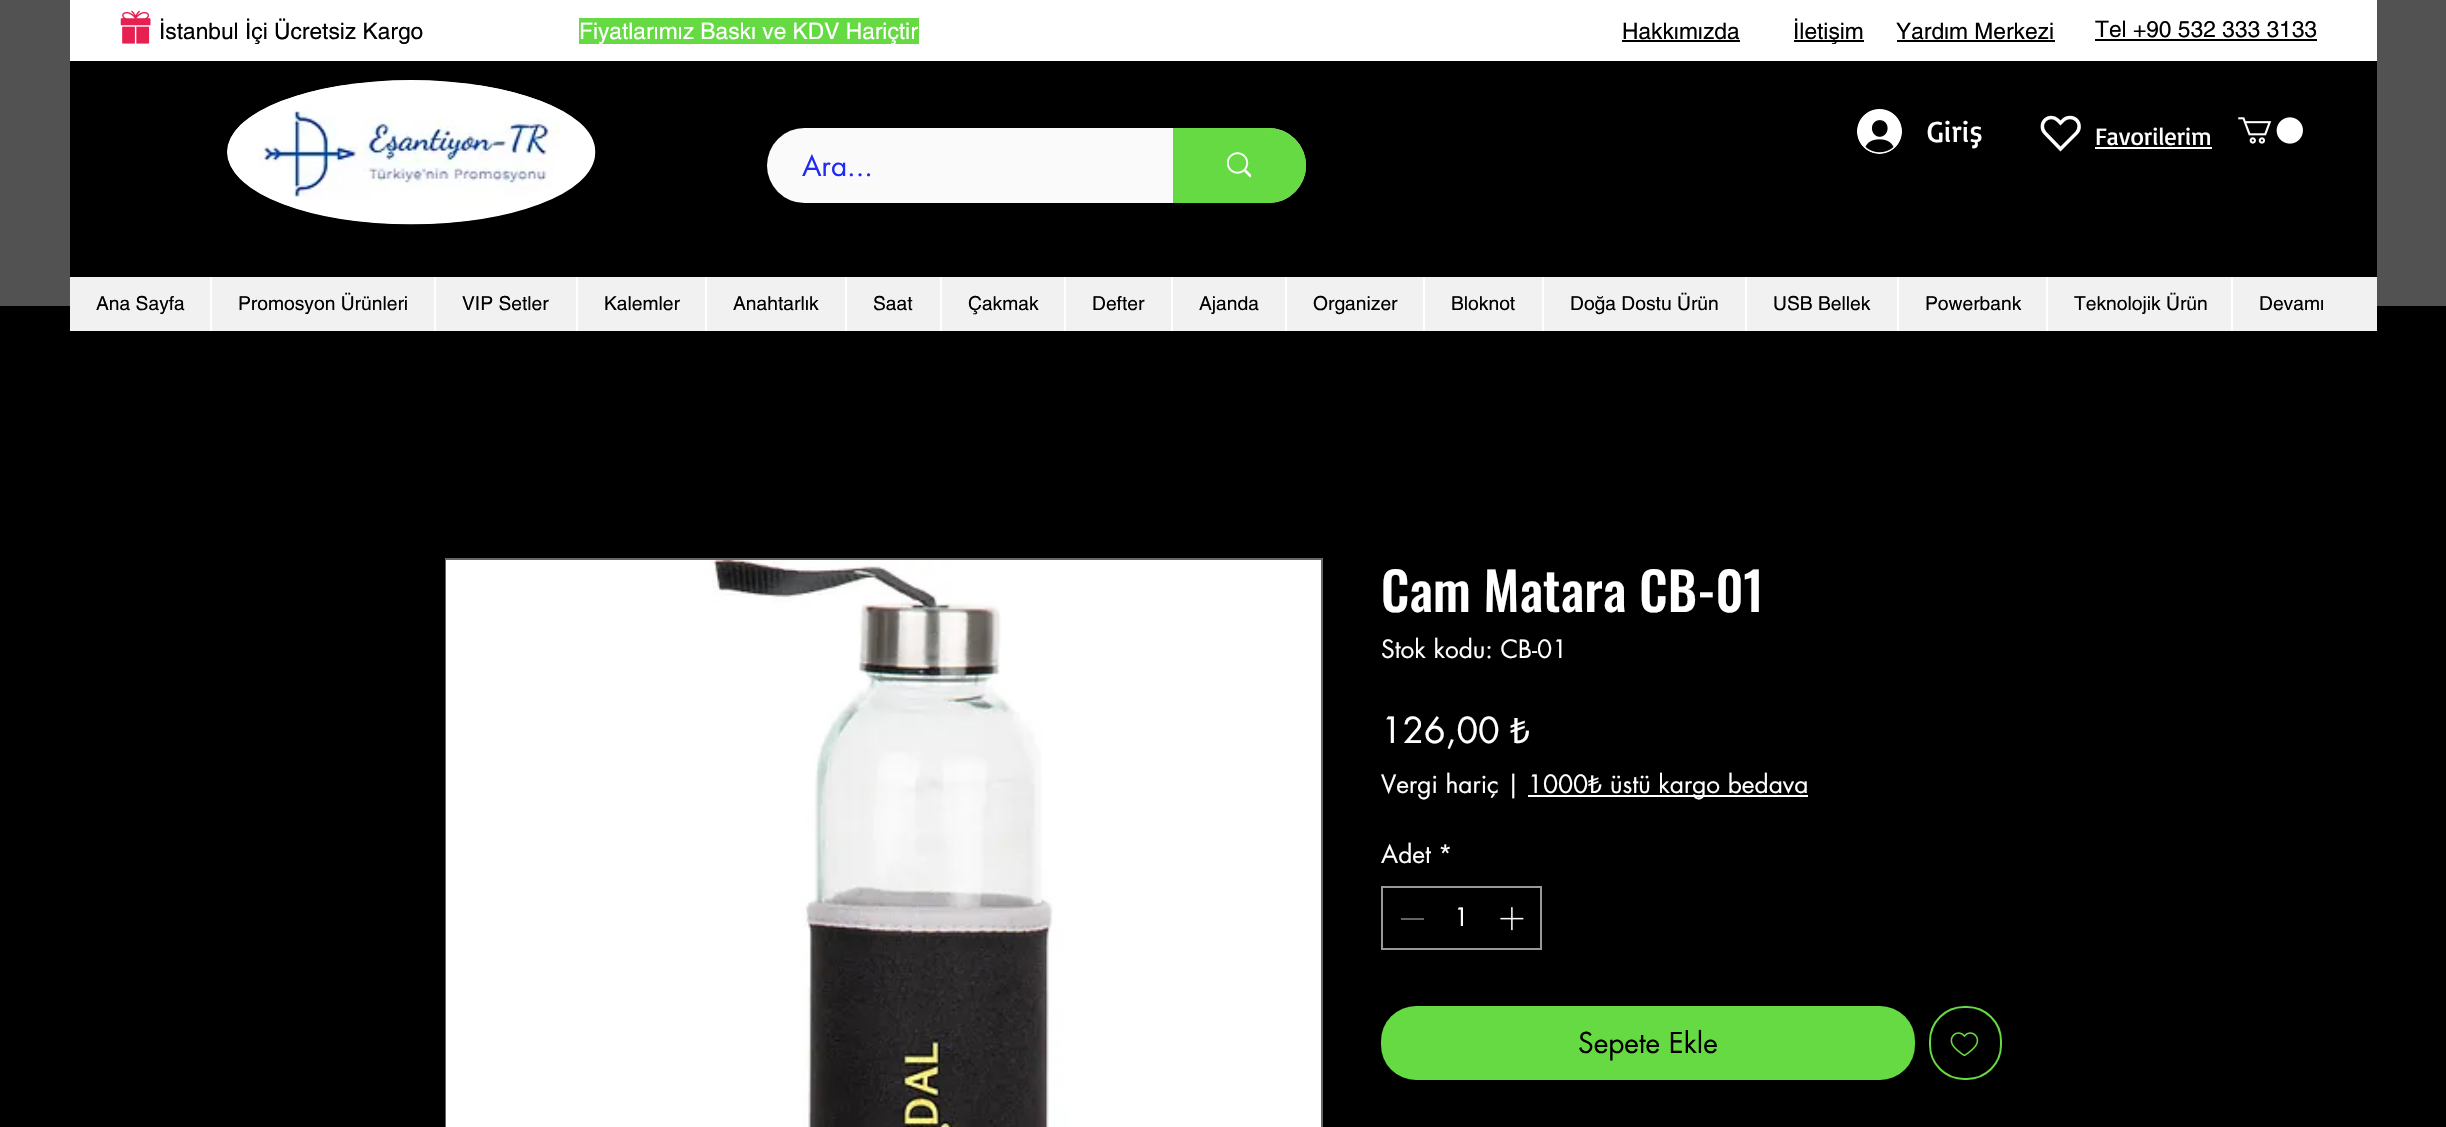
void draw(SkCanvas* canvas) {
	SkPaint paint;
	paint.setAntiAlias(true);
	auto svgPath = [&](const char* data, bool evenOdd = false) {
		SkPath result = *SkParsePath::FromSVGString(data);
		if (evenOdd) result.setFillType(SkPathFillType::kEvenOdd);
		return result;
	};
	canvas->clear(0xff000000);
	paint.setColor(0xff525252);
	canvas->drawRect(SkRect::MakeXYWH(0, 0, 2446, 306), paint);
	paint.setColor(0xffffffff);
	canvas->drawRect(SkRect::MakeXYWH(70, 0, 2307, 61), paint);
	canvas->drawImageRect(SkImages::DeferredFromEncodedData(SkData::MakeFromFileName("img1.png")), SkRect::MakeXYWH(120, 10, 31, 34), SkSamplingOptions());
	SkFont f1(fontMgr->matchFamilyStyle("helvetica", SkFontStyle::Normal()), 22.75);
	f1.setSubpixel(true);
	paint.setColor(0xff000000);
	canvas->drawString("İstanbul İçi Ücretsiz Kargo", 159, 39, f1, paint);
	paint.setColor(0xff66da43);
	canvas->drawRect(SkRect::MakeXYWH(579, 18, 340, 26), paint);
	paint.setColor(0xffffffff);
	canvas->drawString("Fiyatlarımız Baskı ve KDV Hariçtir", 579, 39, f1, paint);
	paint.setColor(0xff000000);
	canvas->drawString("Hakkımızda", 1622, 39, f1, paint);
	canvas->drawRect(SkRect::MakeXYWH(1622, 40, 118, 2), paint);
	canvas->drawRect(SkRect::MakeXYWH(1794, 40, 70, 2), paint);
	canvas->drawString("İletişim", 1793, 39, f1, paint);
	canvas->drawString("Yardım Merkezi", 1896, 39, f1, paint);
	canvas->drawRect(SkRect::MakeXYWH(1897, 40, 158, 2), paint);
	canvas->drawString("Tel +90 532 333 3133", 2095, 37, f1, paint);
	canvas->drawRect(SkRect::MakeXYWH(2095, 39, 222, 2), paint);
	canvas->drawRect(SkRect::MakeXYWH(70, 61, 2307, 216), paint);
	canvas->drawImageRect(SkImages::DeferredFromEncodedData(SkData::MakeFromFileName("img2.png")), SkRect::MakeXYWH(1857, 109, 45, 45), SkSamplingOptions());
	SkFont f2(fontMgr->matchFamilyStyle("Basic", SkFontStyle::Normal()), 30);
	f2.setSubpixel(true);
	paint.setColor(0xffffffff);
	canvas->drawString("Giriş", 1927, 142, f2, paint);
	paint.setStroke(true);
	paint.setStrokeWidth(3.5);
	canvas->drawPath(svgPath("M2076.5 120C2073 116.5 2067 116.5 2063.5 120L2060.5 123L2057.5 120C2054 116.5 2048.5 116.5 2045 120C2041.5 123.5 2041.5 129.5 2045 133L2060.5 149L2076.5 133C2080 129.5 2080 123.5 2076.5 120Z"), paint);
	SkFont f3(fontMgr->matchFamilyStyle("Basic", SkFontStyle::Normal()), 24.5);
	f3.setSubpixel(true);
	paint.setStroke(false);
	canvas->drawString("Favorilerim", 2095, 145, f3, paint);
	canvas->drawRect(SkRect::MakeXYWH(2095, 147, 117, 2), paint);
	canvas->drawImageRect(SkImages::DeferredFromEncodedData(SkData::MakeFromFileName("img3.png")), SkRect::MakeXYWH(2238, 117, 65, 27), SkSamplingOptions());
	canvas->drawOval(SkRect::MakeXYWH(227, 80, 368, 144), paint);
	paint.setStroke(true);
	paint.setStrokeWidth(10.5);
	canvas->drawPath(svgPath("M411 86C510 86 590 115.5 590 152C590 189 510 219 411 219C312.5 219 233 189 233 152C233 115.5 312.5 86 411 86Z"), paint);
	canvas->drawImageRect(SkImages::DeferredFromEncodedData(SkData::MakeFromFileName("img4.png")), SkRect::MakeXYWH(259, 104, 302, 97), SkSamplingOptions());
	paint.setStroke(false);
	paint.setColor(0xfffafafa);
	canvas->drawRoundRect(SkRect::MakeXYWH(767, 128, 539, 75), 37.5, 37.5, paint);
	SkFont f4(fontMgr->matchFamilyStyle("futura", SkFontStyle::Normal()), 28);
	f4.setSubpixel(true);
	paint.setColor(0xff1f2bf3);
	canvas->drawString("Ara...", 802, 176, f4, paint);
	paint.setColor(0xff66da43);
	canvas->drawPath(svgPath("M1173 128H1268.5C1289 128 1306 145 1306 165.5C1306 186 1289 203 1268.5 203H1173Z"), paint);
	canvas->drawImageRect(SkImages::DeferredFromEncodedData(SkData::MakeFromFileName("img5.png")), SkRect::MakeXYWH(1227, 152, 24, 26), SkSamplingOptions());
	paint.setColor(0xfff1f1f1);
	canvas->drawRect(SkRect::MakeXYWH(70, 277, 2307, 54), paint);
	SkFont f5(fontMgr->matchFamilyStyle("helvetica", SkFontStyle::Normal()), 19.25);
	f5.setSubpixel(true);
	paint.setColor(0xff000000);
	canvas->drawString("Ana Sayfa", 96, 310, f5, paint);
	paint.setColor(0xffffffff);
	canvas->drawRect(SkRect::MakeXYWH(210, 277, 2, 54), paint);
	paint.setColor(0xff000000);
	canvas->drawString("Promosyon Ürünleri", 238, 310, f5, paint);
	paint.setColor(0xffffffff);
	canvas->drawRect(SkRect::MakeXYWH(434, 277, 2, 54), paint);
	paint.setColor(0xff000000);
	canvas->drawString("VIP Setler", 462, 310, f5, paint);
	paint.setColor(0xffffffff);
	canvas->drawRect(SkRect::MakeXYWH(576, 277, 2, 54), paint);
	paint.setColor(0xff000000);
	canvas->drawString("Kalemler", 604, 310, f5, paint);
	paint.setColor(0xffffffff);
	canvas->drawRect(SkRect::MakeXYWH(705, 277, 2, 54), paint);
	paint.setColor(0xff000000);
	canvas->drawString("Anahtarlık", 733, 310, f5, paint);
	paint.setColor(0xffffffff);
	canvas->drawRect(SkRect::MakeXYWH(845, 277, 2, 54), paint);
	paint.setColor(0xff000000);
	canvas->drawString("Saat", 873, 310, f5, paint);
	paint.setColor(0xffffffff);
	canvas->drawRect(SkRect::MakeXYWH(940, 277, 2, 54), paint);
	paint.setColor(0xff000000);
	canvas->drawString("Çakmak", 968, 310, f5, paint);
	paint.setColor(0xffffffff);
	canvas->drawRect(SkRect::MakeXYWH(1064, 277, 2, 54), paint);
	paint.setColor(0xff000000);
	canvas->drawString("Defter", 1092, 310, f5, paint);
	paint.setColor(0xffffffff);
	canvas->drawRect(SkRect::MakeXYWH(1171, 277, 2, 54), paint);
	paint.setColor(0xff000000);
	canvas->drawString("Ajanda", 1199, 310, f5, paint);
	paint.setColor(0xffffffff);
	canvas->drawRect(SkRect::MakeXYWH(1285, 277, 2, 54), paint);
	paint.setColor(0xff000000);
	canvas->drawString("Organizer", 1313, 310, f5, paint);
	paint.setColor(0xffffffff);
	canvas->drawRect(SkRect::MakeXYWH(1423, 277, 2, 54), paint);
	paint.setColor(0xff000000);
	canvas->drawString("Bloknot", 1451, 310, f5, paint);
	paint.setColor(0xffffffff);
	canvas->drawRect(SkRect::MakeXYWH(1542, 277, 2, 54), paint);
	paint.setColor(0xff000000);
	canvas->drawString("Doğa Dostu Ürün", 1570, 310, f5, paint);
	paint.setColor(0xffffffff);
	canvas->drawRect(SkRect::MakeXYWH(1745, 277, 2, 54), paint);
	paint.setColor(0xff000000);
	canvas->drawString("USB Bellek", 1773, 310, f5, paint);
	paint.setColor(0xffffffff);
	canvas->drawRect(SkRect::MakeXYWH(1897, 277, 2, 54), paint);
	paint.setColor(0xff000000);
	canvas->drawString("Powerbank", 1925, 310, f5, paint);
	paint.setColor(0xffffffff);
	canvas->drawRect(SkRect::MakeXYWH(2046, 277, 2, 54), paint);
	paint.setColor(0xff000000);
	canvas->drawString("Teknolojik Ürün", 2074, 310, f5, paint);
	paint.setColor(0xffffffff);
	canvas->drawRect(SkRect::MakeXYWH(2231, 277, 2, 54), paint);
	paint.setColor(0xff000000);
	canvas->drawString("Devamı", 2259, 310, f5, paint);
	paint.setStroke(true);
	paint.setStrokeWidth(2);
	paint.setColor(0xff666666);
	canvas->drawRect(SkRect::MakeXYWH(446, 559, 876, 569), paint);
	canvas->drawImageRect(SkImages::DeferredFromEncodedData(SkData::MakeFromFileName("img6.png")), SkRect::MakeXYWH(446, 560, 875, 567), SkSamplingOptions());
	SkFont f6(fontMgr->matchFamilyStyle("Oswald", SkFontStyle(500, SkFontStyle::kNormal_Width, SkFontStyle::kUpright_Slant)), 52.5);
	f6.setSubpixel(true);
	paint.setStroke(false);
	paint.setColor(0xffffffff);
	canvas->drawString("Cam Matara CB-01", 1381, 612, f6, paint);
	SkFont f7(fontMgr->matchFamilyStyle("futura", SkFontStyle::Normal()), 24.5);
	f7.setSubpixel(true);
	canvas->drawString("Stok kodu: CB-01", 1381, 658, f7, paint);
	SkFont f8(fontMgr->matchFamilyStyle("futura", SkFontStyle::Normal()), 35);
	f8.setSubpixel(true);
	canvas->drawString("126,00", 1381, 743, f8, paint);
	SkFont f9(fontMgr->matchFamilyStyle("Noto Sans", SkFontStyle::Normal()), 35);
	f9.setSubpixel(true);
	canvas->drawString("₺", 1510, 743, f9, paint);
	canvas->drawString("Vergi hariç | 1000", 1381, 793, f7, paint);
	SkFont f10(fontMgr->matchFamilyStyle("Noto Sans", SkFontStyle::Normal()), 24.5);
	f10.setSubpixel(true);
	canvas->drawString("₺", 1588, 793, f10, paint);
	canvas->drawRect(SkRect::MakeXYWH(1528, 795, 280, 2), paint);
	canvas->drawString("üstü kargo bedava", 1610, 793, f7, paint);
	canvas->drawString("Adet", 1381, 863, f7, paint);
	canvas->drawString("*", 1438, 863, f7, paint);
	paint.setStroke(true);
	paint.setColor(0xff999999);
	canvas->drawRect(SkRect::MakeXYWH(1382, 887, 159, 62), paint);
	paint.setStroke(false);
	paint.setColor(0xff646464);
	canvas->drawRect(SkRect::MakeXYWH(1401, 918, 23, 2), paint);
	paint.setColor(0xffffffff);
	canvas->drawString("1", 1454, 926, f7, paint);
	canvas->drawImageRect(SkImages::DeferredFromEncodedData(SkData::MakeFromFileName("img7.png")), SkRect::MakeXYWH(1500, 907, 24, 24), SkSamplingOptions());
	paint.setColor(0xff66da43);
	canvas->drawRoundRect(SkRect::MakeXYWH(1381, 1006, 534, 74), 35, 35, paint);
	paint.setColor(0xff000000);
	canvas->drawString("Sepete Ekle", 1578, 1053, f4, paint);
	paint.setStroke(true);
	paint.setColor(0xff66da43);
	canvas->drawRoundRect(SkRect::MakeXYWH(1930, 1007, 71, 72), 34, 34, paint);
	canvas->drawImageRect(SkImages::DeferredFromEncodedData(SkData::MakeFromFileName("img8.png")), SkRect::MakeXYWH(1950, 1032, 29, 24), SkSamplingOptions());
}
